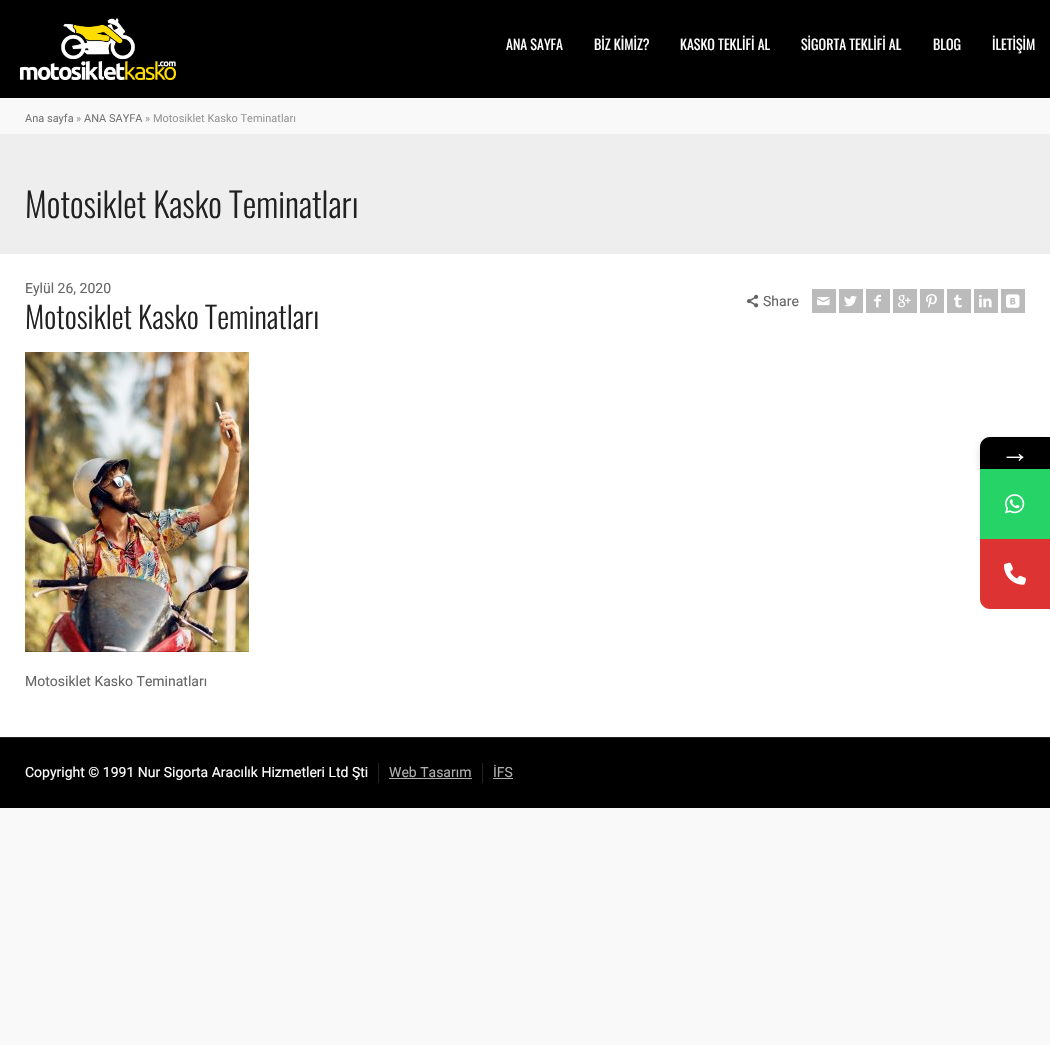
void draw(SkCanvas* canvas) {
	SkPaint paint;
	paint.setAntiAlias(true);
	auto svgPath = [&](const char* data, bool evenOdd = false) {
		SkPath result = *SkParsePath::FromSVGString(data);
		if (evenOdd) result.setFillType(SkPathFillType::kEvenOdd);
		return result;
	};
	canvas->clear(0xfff9f9f9);
	paint.setColor(0xff000000);
	canvas->drawRect(SkRect::MakeXYWH(0, 0, 1050, 98), paint);
	canvas->drawImageRect(SkImages::DeferredFromEncodedData(SkData::MakeFromFileName("img1.png")), SkRect::MakeXYWH(20, 18, 156, 62), SkSamplingOptions());
	SkFont f1(fontMgr->matchFamilyStyle("Oswald", SkFontStyle::Normal()), 14);
	f1.setSubpixel(true);
	paint.setColor(0xffffffff);
	canvas->drawString("ANA SAYFA", 506, 50, f1, paint);
	canvas->drawString("BİZ KİMİZ?", 594, 50, f1, paint);
	canvas->drawString("KASKO TEKLİFİ AL", 680, 50, f1, paint);
	canvas->drawString("SİGORTA TEKLİFİ AL", 801, 50, f1, paint);
	canvas->drawString("BLOG", 933, 50, f1, paint);
	canvas->drawString("İLETİŞİM", 992, 50, f1, paint);
	paint.setColor(0xffeeeeee);
	canvas->drawRect(SkRect::MakeXYWH(0, 134, 1050, 120), paint);
	SkFont f2(fontMgr->matchFamilyStyle("Roboto", SkFontStyle::Normal()), 11);
	f2.setSubpixel(true);
	paint.setColor(0xff777777);
	canvas->drawString("Ana sayfa", 25, 122, f2, paint);
	paint.setColor(0xff999999);
	canvas->drawString("»", 76, 122, f2, paint);
	paint.setColor(0xff777777);
	canvas->drawString("ANA SAYFA", 84, 122, f2, paint);
	paint.setColor(0xff999999);
	canvas->drawString("» Motosiklet Kasko Teminatları", 145, 122, f2, paint);
	SkFont f3(fontMgr->matchFamilyStyle("Oswald", SkFontStyle(300, SkFontStyle::kNormal_Width, SkFontStyle::kUpright_Slant)), 34);
	f3.setSubpixel(true);
	paint.setColor(0xff212121);
	canvas->drawString("Motosiklet Kasko Teminatları", 25, 218, f3, paint);
	paint.setColor(0xffffffff);
	canvas->drawRect(SkRect::MakeXYWH(0, 254, 1050, 483), paint);
	SkFont f4(fontMgr->matchFamilyStyle("Roboto", SkFontStyle::Normal()), 14);
	f4.setSubpixel(true);
	paint.setColor(0xff666666);
	canvas->drawString("Eylül 26, 2020", 25, 293, f4, paint);
	SkFont f5(fontMgr->matchFamilyStyle("Oswald", SkFontStyle(300, SkFontStyle::kNormal_Width, SkFontStyle::kUpright_Slant)), 30);
	f5.setSubpixel(true);
	paint.setColor(0xff212121);
	canvas->drawString("Motosiklet Kasko Teminatları", 25, 329, f5, paint);
	canvas->drawImageRect(SkImages::DeferredFromEncodedData(SkData::MakeFromFileName("img2.png")), SkRect::MakeXYWH(747, 294, 12, 14), SkSamplingOptions());
	paint.setColor(0xff666666);
	canvas->drawString("Share", 763, 306, f4, paint);
	paint.setColor(0xffbbbbbb);
	canvas->drawRect(SkRect::MakeXYWH(812, 289, 24, 24), paint);
	canvas->drawImageRect(SkImages::DeferredFromEncodedData(SkData::MakeFromFileName("img3.png")), SkRect::MakeXYWH(817, 297, 13, 9), SkSamplingOptions());
	canvas->drawRect(SkRect::MakeXYWH(839, 289, 24, 24), paint);
	canvas->drawImageRect(SkImages::DeferredFromEncodedData(SkData::MakeFromFileName("img4.png")), SkRect::MakeXYWH(844, 296, 13, 11), SkSamplingOptions());
	canvas->drawRect(SkRect::MakeXYWH(866, 289, 24, 24), paint);
	canvas->drawImageRect(SkImages::DeferredFromEncodedData(SkData::MakeFromFileName("img5.png")), SkRect::MakeXYWH(874, 294, 7, 14), SkSamplingOptions());
	canvas->drawRect(SkRect::MakeXYWH(893, 289, 24, 24), paint);
	canvas->drawImageRect(SkImages::DeferredFromEncodedData(SkData::MakeFromFileName("img6.png")), SkRect::MakeXYWH(898, 294, 13, 14), SkSamplingOptions());
	canvas->drawRect(SkRect::MakeXYWH(920, 289, 24, 24), paint);
	canvas->drawImageRect(SkImages::DeferredFromEncodedData(SkData::MakeFromFileName("img7.png")), SkRect::MakeXYWH(926, 294, 11, 14), SkSamplingOptions());
	canvas->drawRect(SkRect::MakeXYWH(947, 289, 24, 24), paint);
	canvas->drawImageRect(SkImages::DeferredFromEncodedData(SkData::MakeFromFileName("img8.png")), SkRect::MakeXYWH(954, 294, 8, 14), SkSamplingOptions());
	canvas->drawRect(SkRect::MakeXYWH(974, 289, 24, 24), paint);
	canvas->drawImageRect(SkImages::DeferredFromEncodedData(SkData::MakeFromFileName("img9.png")), SkRect::MakeXYWH(979, 294, 13, 14), SkSamplingOptions());
	canvas->drawRect(SkRect::MakeXYWH(1001, 289, 24, 24), paint);
	canvas->drawImageRect(SkImages::DeferredFromEncodedData(SkData::MakeFromFileName("img10.png")), SkRect::MakeXYWH(1006, 294, 14, 14), SkSamplingOptions());
	canvas->drawImageRect(SkImages::DeferredFromEncodedData(SkData::MakeFromFileName("img11.png")), SkRect::MakeXYWH(25, 352, 224, 300), SkSamplingOptions());
	paint.setColor(0xff666666);
	canvas->drawString("Motosiklet Kasko Teminatları", 25, 686, f4, paint);
	paint.setColor(0xff000000);
	canvas->drawRect(SkRect::MakeXYWH(0, 738, 1050, 70), paint);
	paint.setColor(0xff222222);
	canvas->drawRect(SkRect::MakeXYWH(0, 737, 1050, 1), paint);
	paint.setColor(0xffffffff);
	canvas->drawString("Copyright © 1991 Nur Sigorta Aracılık Hizmetleri Ltd Şti", 25, 777, f4, paint);
	paint.setColor(0xff222222);
	canvas->drawRect(SkRect::MakeXYWH(378, 763, 1, 20), paint);
	paint.setColor(0xffaeaeae);
	canvas->drawString("Web Tasarım", 389, 777, f4, paint);
	canvas->drawRect(SkRect::MakeXYWH(389, 778, 83, 1), paint);
	paint.setColor(0xff222222);
	canvas->drawRect(SkRect::MakeXYWH(482, 763, 1, 20), paint);
	paint.setColor(0xffaeaeae);
	canvas->drawString("İFS", 493, 777, f4, paint);
	canvas->drawRect(SkRect::MakeXYWH(493, 778, 20, 1), paint);
	paint.setColor(0x29000000);
	paint.setMaskFilter(SkMaskFilter::MakeBlur(kNormal_SkBlurStyle, 3));
	canvas->drawRoundRect(SkRect::MakeXYWH(980, 440, 70, 32), 10, 10, paint);
	paint.setMaskFilter(nullptr);
	paint.setColor(0xff000000);
	canvas->drawPath(svgPath("M990 437H1050V469H980V447C980 441.5 984.5 437 990 437Z"), paint);
	SkFont f6(fontMgr->matchFamilyStyle("Liberation Serif", SkFontStyle::Normal()), 28);
	f6.setSubpixel(true);
	paint.setColor(0xffffffff);
	canvas->drawString("→", 1001, 462, f6, paint);
	paint.setColor(0xff26d367);
	canvas->drawRect(SkRect::MakeXYWH(980, 469, 70, 70), paint);
	canvas->drawImageRect(SkImages::DeferredFromEncodedData(SkData::MakeFromFileName("img12.png")), SkRect::MakeXYWH(1005, 494, 20, 20), SkSamplingOptions());
	paint.setColor(0xffdd3333);
	canvas->drawPath(svgPath("M980 539H1050V609H990C984.5 609 980 604.5 980 599Z"), paint);
	canvas->drawImageRect(SkImages::DeferredFromEncodedData(SkData::MakeFromFileName("img13.png")), SkRect::MakeXYWH(1004, 562, 22, 23), SkSamplingOptions());
}
